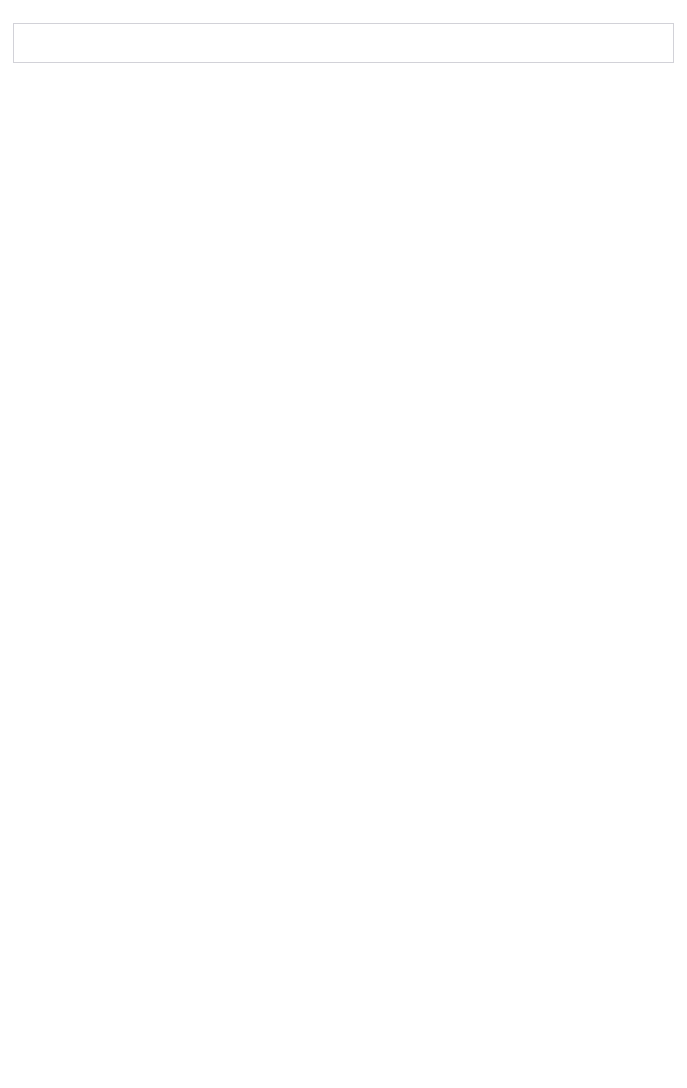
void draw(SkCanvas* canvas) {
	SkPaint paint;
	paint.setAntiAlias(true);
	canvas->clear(0xffffffff);
	paint.setColor(0xffd2d2d8);
	canvas->drawRect(SkRect::MakeXYWH(13, 23, 661, 1), paint);
	canvas->drawRect(SkRect::MakeXYWH(673, 23, 1, 40), paint);
	canvas->drawRect(SkRect::MakeXYWH(13, 62, 661, 1), paint);
	canvas->drawRect(SkRect::MakeXYWH(13, 23, 1, 40), paint);
}
